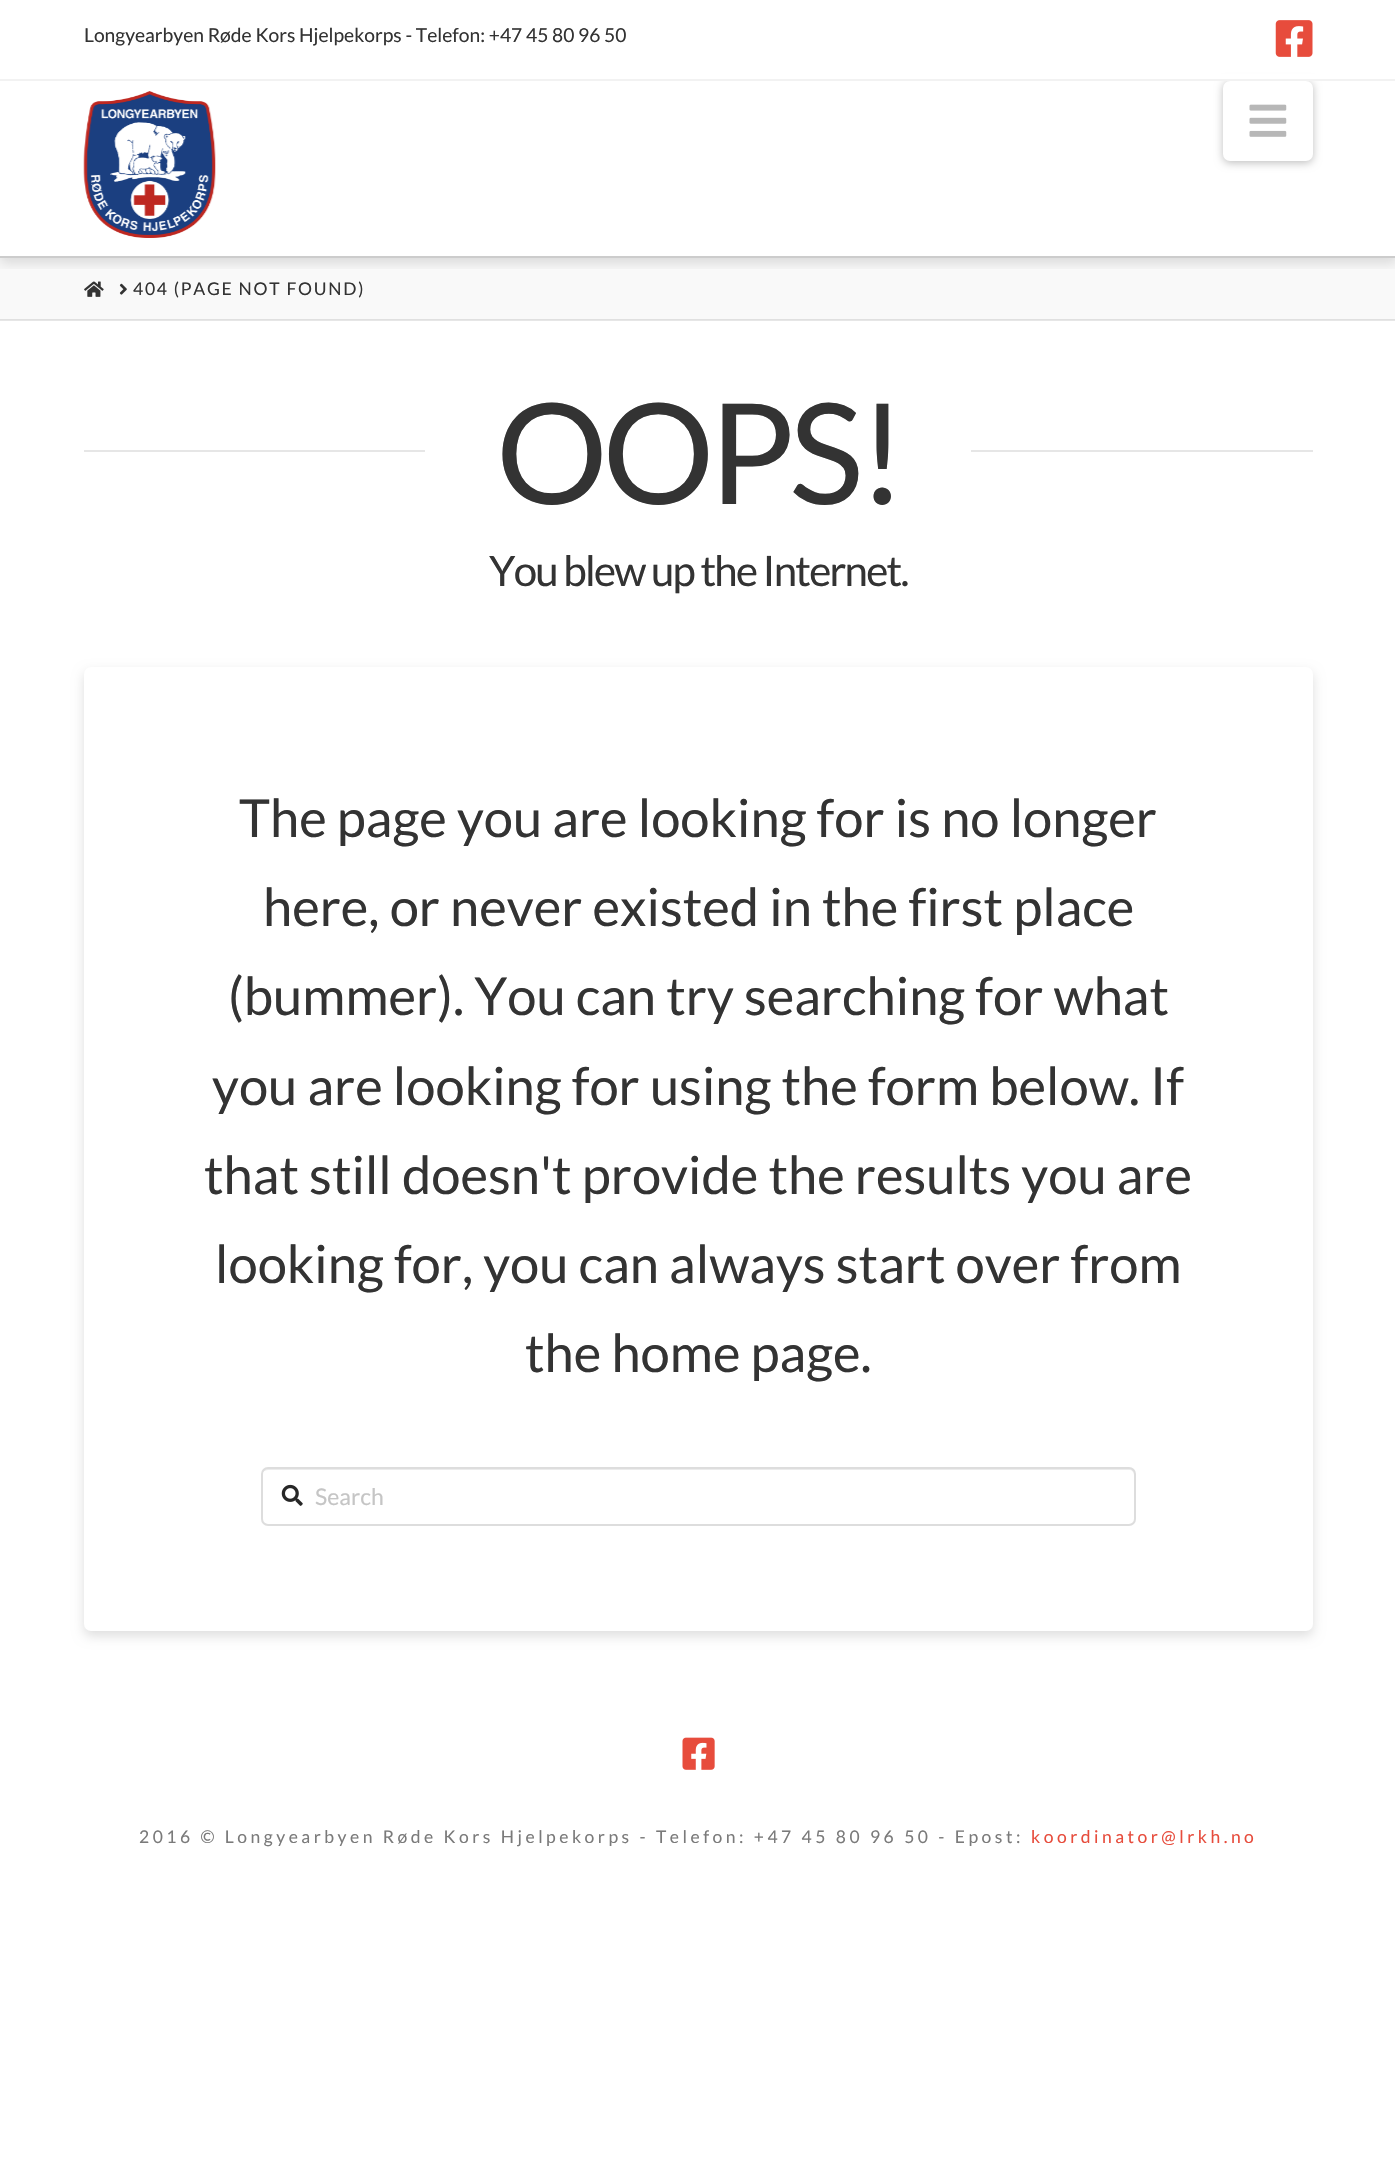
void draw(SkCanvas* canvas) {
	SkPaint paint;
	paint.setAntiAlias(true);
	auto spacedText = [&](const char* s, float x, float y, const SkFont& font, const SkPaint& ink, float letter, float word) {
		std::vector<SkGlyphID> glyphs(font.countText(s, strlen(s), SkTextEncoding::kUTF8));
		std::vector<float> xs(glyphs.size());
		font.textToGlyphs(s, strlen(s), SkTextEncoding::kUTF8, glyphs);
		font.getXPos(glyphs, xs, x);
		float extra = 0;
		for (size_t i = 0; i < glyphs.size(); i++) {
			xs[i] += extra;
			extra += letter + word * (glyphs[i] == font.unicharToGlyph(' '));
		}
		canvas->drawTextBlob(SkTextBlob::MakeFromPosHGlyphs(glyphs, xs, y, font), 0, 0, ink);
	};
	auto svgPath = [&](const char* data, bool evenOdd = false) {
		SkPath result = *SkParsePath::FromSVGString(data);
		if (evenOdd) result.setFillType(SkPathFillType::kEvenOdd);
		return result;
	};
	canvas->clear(0xffffffff);
	paint.setColor(0xffe6e6e6);
	canvas->drawRect(SkRect::MakeXYWH(0, 320, 1395, 1), paint);
	paint.setColor(0xfff9f9f9);
	canvas->drawRect(SkRect::MakeXYWH(0, 258, 1395, 61), paint);
	canvas->drawImageRect(SkImages::DeferredFromEncodedData(SkData::MakeFromFileName("img4.png")), SkRect::MakeXYWH(84, 281, 20, 16), SkSamplingOptions());
	canvas->save();
	canvas->clipRect(SkRect::MakeXYWH(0, 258, 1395, 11));
	paint.setColor(0x21000000);
	paint.setMaskFilter(SkMaskFilter::MakeBlur(kNormal_SkBlurStyle, 6));
	canvas->drawRect(SkRect::MakeXYWH(0, 86, 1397, 177), paint);
	paint.setMaskFilter(nullptr);
	canvas->restore();
	paint.setColor(0x40000000);
	paint.setMaskFilter(SkMaskFilter::MakeBlur(kNormal_SkBlurStyle, 4.5));
	canvas->drawRoundRect(SkRect::MakeXYWH(1223, 82, 90, 81), 7, 7, paint);
	paint.setMaskFilter(nullptr);
	paint.setColor(0xffffffff);
	canvas->drawRect(SkRect::MakeXYWH(4, 74, 1389, 5), paint);
	paint.setColor(0xfff2f2f2);
	canvas->drawRect(SkRect::MakeXYWH(0, 79, 1395, 2), paint);
	SkFont f1(fontMgr->matchFamilyStyle("Lato", SkFontStyle::Normal()), 19.25);
	f1.setSubpixel(true);
	paint.setColor(0xff333333);
	canvas->drawString("Longyearbyen Røde Kors Hjelpekorps - Telefon: +47 45 80 96 50", 84, 42, f1, paint);
	canvas->drawImageRect(SkImages::DeferredFromEncodedData(SkData::MakeFromFileName("img1.png")), SkRect::MakeXYWH(1275, 20, 38, 37), SkSamplingOptions());
	paint.setColor(0xffcccccc);
	canvas->drawRect(SkRect::MakeXYWH(0, 256, 1395, 2), paint);
	canvas->drawImageRect(SkImages::DeferredFromEncodedData(SkData::MakeFromFileName("img2.png")), SkRect::MakeXYWH(83, 91, 133, 147), SkSamplingOptions());
	paint.setColor(0xffffffff);
	canvas->drawRoundRect(SkRect::MakeXYWH(1223, 81, 90, 80), 7, 7, paint);
	canvas->drawImageRect(SkImages::DeferredFromEncodedData(SkData::MakeFromFileName("img3.png")), SkRect::MakeXYWH(1249, 104, 38, 33), SkSamplingOptions());
	paint.setColor(0xffe0e0e0);
	canvas->drawRect(SkRect::MakeXYWH(0, 319, 1395, 1), paint);
	canvas->drawImageRect(SkImages::DeferredFromEncodedData(SkData::MakeFromFileName("img5.png")), SkRect::MakeXYWH(119, 283, 8, 12), SkSamplingOptions());
	SkFont f2(fontMgr->matchFamilyStyle("Lato", SkFontStyle::Normal()), 17.5);
	f2.setSubpixel(true);
	paint.setColor(0xff333333);
	spacedText("404 (PAGE NOT FOUND)", 133, 295, f2, paint, 1.75, 0);
	paint.setColor(0xffe6e6e6);
	canvas->drawRect(SkRect::MakeXYWH(84, 450, 341, 2), paint);
	SkFont f3(fontMgr->matchFamilyStyle("Lato", SkFontStyle::Normal()), 140);
	f3.setSubpixel(true);
	paint.setColor(0xff333333);
	spacedText("OOPS!", 496, 504, f3, paint, -5.25, 0);
	paint.setColor(0xffe6e6e6);
	canvas->drawRect(SkRect::MakeXYWH(971, 450, 342, 2), paint);
	SkFont f4(fontMgr->matchFamilyStyle("Lato", SkFontStyle::Normal()), 42);
	f4.setSubpixel(true);
	paint.setColor(0xff333333);
	spacedText("You blew up the Internet.", 489, 586, f4, paint, -1.75, 0);
	paint.setColor(0x21000000);
	paint.setMaskFilter(SkMaskFilter::MakeBlur(kNormal_SkBlurStyle, 6));
	canvas->drawRoundRect(SkRect::MakeXYWH(84, 672, 1229, 964), 7, 7, paint);
	paint.setMaskFilter(nullptr);
	paint.setColor(0xffffffff);
	canvas->drawRoundRect(SkRect::MakeXYWH(84, 667, 1229, 964), 7, 7, paint);
	SkFont f5(fontMgr->matchFamilyStyle("Lato", SkFontStyle::Normal()), 52.5);
	f5.setSubpixel(true);
	paint.setColor(0xff333333);
	canvas->drawString("The page you are looking for is no longer", 239, 837, f5, paint);
	canvas->drawString("here, or never existed in the first place", 263, 926, f5, paint);
	canvas->drawString("(bummer). You can try searching for what", 228, 1015, f5, paint);
	canvas->drawString("you are looking for using the form below. If", 212, 1105, f5, paint);
	canvas->drawString("that still doesn't provide the results you are", 204, 1194, f5, paint);
	canvas->drawString("looking for, you can always start over from", 215, 1283, f5, paint);
	canvas->drawString("the home page.", 525, 1372, f5, paint);
	paint.setColor(0xffececec);
	canvas->drawPath(svgPath("M268 1470H1129C1132 1470 1134 1472 1134 1475V1473C1134 1470 1132 1468 1129 1468H268C266 1468 263 1470 263 1472C264 1471 266 1470 268 1470Z"), paint);
	paint.setStroke(true);
	paint.setStrokeWidth(2);
	paint.setColor(0xffdddddd);
	canvas->drawRoundRect(SkRect::MakeXYWH(262, 1468, 873, 57), 6, 6, paint);
	canvas->drawImageRect(SkImages::DeferredFromEncodedData(SkData::MakeFromFileName("img6.png")), SkRect::MakeXYWH(281, 1484, 22, 22), SkSamplingOptions());
	SkFont f6(fontMgr->matchFamilyStyle("Lato", SkFontStyle::Normal()), 23);
	f6.setSubpixel(true);
	paint.setStroke(false);
	paint.setColor(0xffc5c5c5);
	canvas->drawString("Search", 315, 1505, f6, paint);
	canvas->drawImageRect(SkImages::DeferredFromEncodedData(SkData::MakeFromFileName("img7.png")), SkRect::MakeXYWH(682, 1737, 33, 33), SkSamplingOptions());
	paint.setColor(0xff7a7a7a);
	spacedText("2016 © Longyearbyen Røde Kors Hjelpekorps - Telefon: +47 45 80 96 50 - Epost:", 139, 1843, f2, paint, 3.5, 0);
	paint.setColor(0xffe74c3c);
	spacedText("koordinator@lrkh.no", 1031, 1843, f2, paint, 3.5, 0);
}
